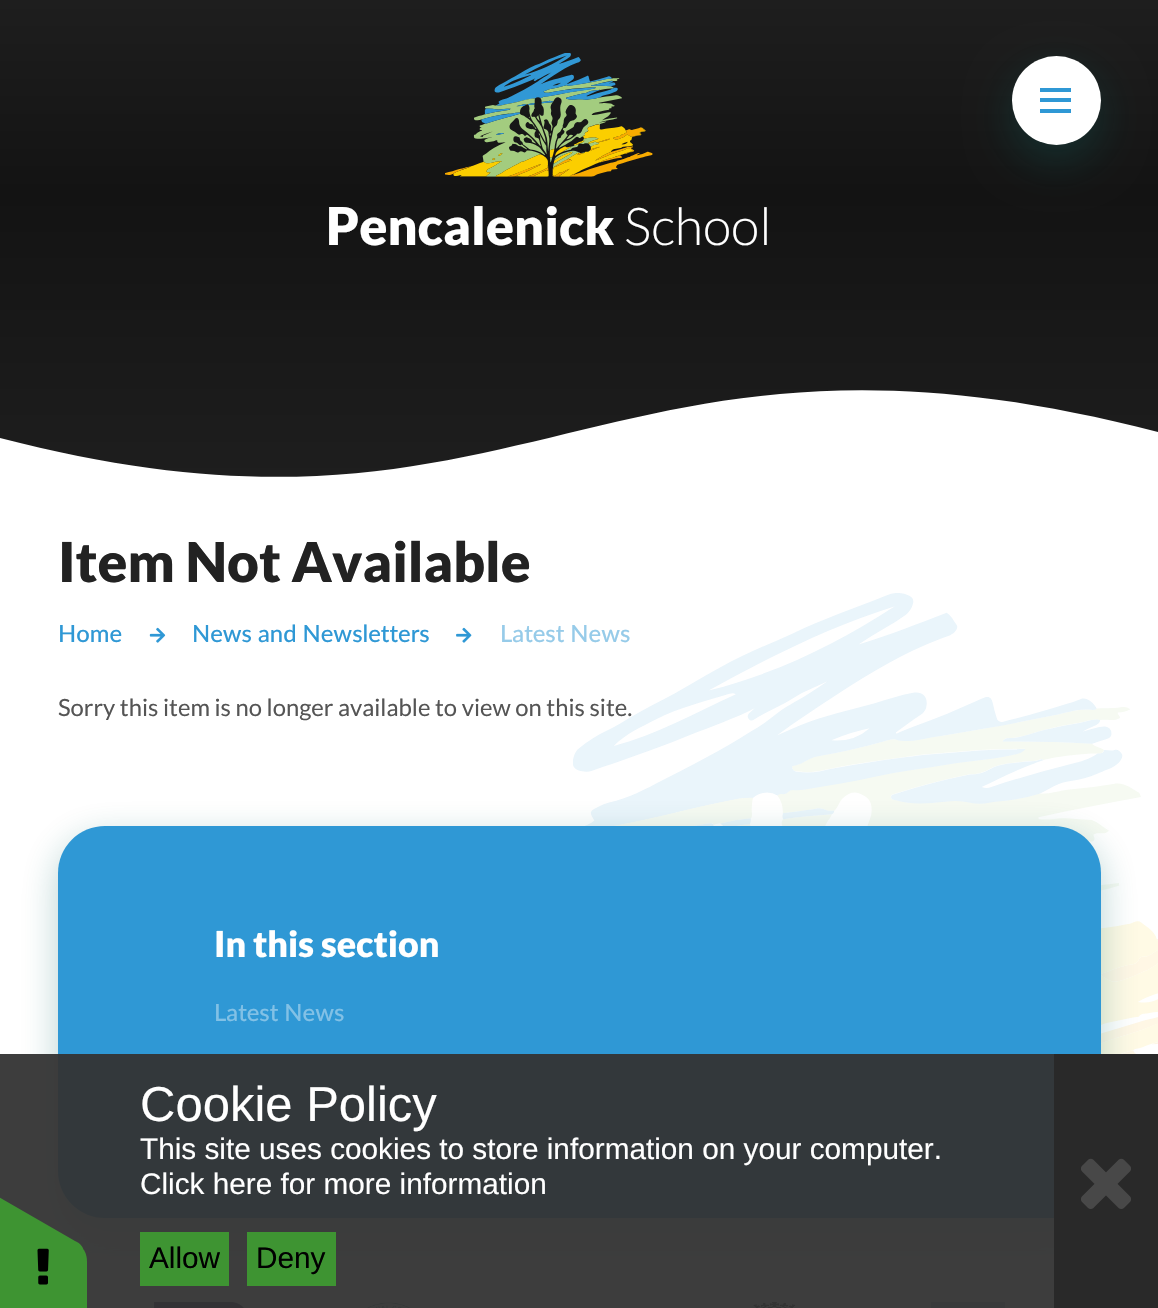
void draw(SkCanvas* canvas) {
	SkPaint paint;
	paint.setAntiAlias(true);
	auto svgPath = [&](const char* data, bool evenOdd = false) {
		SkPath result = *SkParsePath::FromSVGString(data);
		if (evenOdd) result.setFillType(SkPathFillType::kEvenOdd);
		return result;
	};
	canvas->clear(0xffffffff);
	{
		const SkColor colors[] = {0xff1e1e1e, 0xff131313, 0xff1e1e1e};
		const float stops[] = {0, 0.4, 1};
		const SkPoint ends[] = {{579, 0}, {579, 481}};
		paint.setShader(SkGradientShader::MakeLinear(ends, colors, stops, 3, SkTileMode::kClamp));
		paint.setAlpha(255);
	}
	canvas->drawRect(SkRect::MakeXYWH(0, 0, 1158, 477), paint);
	canvas->save();
	canvas->clipRect(SkRect::MakeXYWH(0, 390, 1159, 93));
	paint.setShader(nullptr);
	paint.setColor(0xffffffff);
	canvas->drawPath(svgPath("M0 438C533 577 601 287 1158 432V484H0Z"), paint);
	canvas->restore();
	canvas->drawImageRect(SkImages::DeferredFromEncodedData(SkData::MakeFromFileName("img1.png")), SkRect::MakeXYWH(445, 53, 208, 124), SkSamplingOptions());
	SkFont f1(fontMgr->matchFamilyStyle("Lato", SkFontStyle(900, SkFontStyle::kNormal_Width, SkFontStyle::kUpright_Slant)), 52);
	f1.setSubpixel(true);
	canvas->drawString("Pencalenick", 326, 245, f1, paint);
	SkFont f2(fontMgr->matchFamilyStyle("Lato", SkFontStyle(300, SkFontStyle::kNormal_Width, SkFontStyle::kUpright_Slant)), 52);
	f2.setSubpixel(true);
	canvas->drawString("School", 624, 245, f2, paint);
	paint.setColor(0x4d116e6b);
	paint.setMaskFilter(SkMaskFilter::MakeBlur(kNormal_SkBlurStyle, 22.5));
	canvas->drawRoundRect(SkRect::MakeXYWH(1012, 72, 89, 89), 44.5, 44.5, paint);
	paint.setMaskFilter(nullptr);
	paint.setColor(0xffffffff);
	canvas->drawCircle(1056.5, 100.5, 44.5, paint);
	paint.setColor(0xff2f98d5);
	canvas->drawRect(SkRect::MakeXYWH(1040, 88, 31, 4), paint);
	canvas->drawRect(SkRect::MakeXYWH(1040, 98, 31, 4), paint);
	canvas->drawRect(SkRect::MakeXYWH(1040, 109, 31, 4), paint);
	SkFont f3(fontMgr->matchFamilyStyle("Lato", SkFontStyle(900, SkFontStyle::kNormal_Width, SkFontStyle::kUpright_Slant)), 55);
	f3.setSubpixel(true);
	paint.setColor(0xff222222);
	canvas->drawString("Item Not Available", 58, 582, f3, paint);
	SkFont f4(fontMgr->matchFamilyStyle("Lato", SkFontStyle(500, SkFontStyle::kNormal_Width, SkFontStyle::kUpright_Slant)), 23.8);
	f4.setSubpixel(true);
	paint.setColor(0xff2f98d5);
	canvas->drawString("Home", 58, 642, f4, paint);
	canvas->drawImageRect(SkImages::DeferredFromEncodedData(SkData::MakeFromFileName("img2.png")), SkRect::MakeXYWH(149, 627, 17, 16), SkSamplingOptions());
	canvas->drawString("News and Newsletters", 192, 642, f4, paint);
	canvas->drawImageRect(SkImages::DeferredFromEncodedData(SkData::MakeFromFileName("img3.png")), SkRect::MakeXYWH(456, 627, 16, 16), SkSamplingOptions());
	canvas->drawImageRect(SkImages::DeferredFromEncodedData(SkData::MakeFromFileName("img4.png")), SkRect::MakeXYWH(573, 593, 585, 461), SkSamplingOptions());
	paint.setColor(0xff96cbe9);
	canvas->drawString("Latest News", 500, 642, f4, paint);
	SkFont f5(fontMgr->matchFamilyStyle("Lato", SkFontStyle::Normal()), 23.8);
	f5.setSubpixel(true);
	paint.setColor(0xff555555);
	canvas->drawString("Sorry this item is no longer available to view on this site.", 58, 716, f5, paint);
	paint.setColor(0x4d116e6b);
	paint.setMaskFilter(SkMaskFilter::MakeBlur(kNormal_SkBlurStyle, 18));
	canvas->drawRoundRect(SkRect::MakeXYWH(58, 838, 1043, 392), 47, 47, paint);
	paint.setMaskFilter(nullptr);
	paint.setColor(0xff2f98d5);
	canvas->drawRoundRect(SkRect::MakeXYWH(58, 826, 1043, 392), 47, 47, paint);
	SkFont f6(fontMgr->matchFamilyStyle("Lato", SkFontStyle(900, SkFontStyle::kNormal_Width, SkFontStyle::kUpright_Slant)), 35.75);
	f6.setSubpixel(true);
	paint.setColor(0xffffffff);
	canvas->drawString("In this section", 214, 957, f6, paint);
	paint.setColor(0xff82c1e6);
	canvas->drawString("Latest News", 214, 1021, f4, paint);
	paint.setColor(0x26222222);
	paint.setMaskFilter(SkMaskFilter::MakeBlur(kNormal_SkBlurStyle, 50));
	canvas->drawRect(SkRect::MakeXYWH(-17, 1265, 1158, 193), paint);
	paint.setMaskFilter(nullptr);
	paint.setColor(0xffffffff);
	canvas->drawRect(SkRect::MakeXYWH(87, 1265, 967, 43), paint);
	canvas->drawImageRect(SkImages::DeferredFromEncodedData(SkData::MakeFromFileName("img5.png")), SkRect::MakeXYWH(154, 1302, 90, 6), SkSamplingOptions());
	canvas->drawImageRect(SkImages::DeferredFromEncodedData(SkData::MakeFromFileName("img6.png")), SkRect::MakeXYWH(366, 1302, 45, 6), SkSamplingOptions());
	canvas->drawImageRect(SkImages::DeferredFromEncodedData(SkData::MakeFromFileName("img7.png")), SkRect::MakeXYWH(753, 1302, 46, 6), SkSamplingOptions());
	paint.setColor(0xffafc0cd);
	canvas->drawRect(SkRect::MakeXYWH(931, 1302, 74, 6), paint);
	paint.setColor(0xf2333333);
	canvas->drawRect(SkRect::MakeXYWH(0, 1054, 1054, 254), paint);
	paint.setColor(0xff3e9432);
	canvas->drawPath(svgPath("M87 1262V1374C87 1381 84 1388 80 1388H-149C-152 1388-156 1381-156 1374V1262C-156 1254-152 1248-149 1248H80C84 1248 87 1254 87 1262Z"), paint);
	canvas->drawPath(svgPath("M-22 1185L75 1241C82 1244 85 1250 83 1254L-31 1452C-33 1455-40 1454-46 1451L-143 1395C-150 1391-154 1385-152 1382L-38 1184C-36 1180-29 1181-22 1185Z"), paint);
	canvas->drawImageRect(SkImages::DeferredFromEncodedData(SkData::MakeFromFileName("img8.png")), SkRect::MakeXYWH(37, 1248, 12, 37), SkSamplingOptions());
	SkFont f7(fontMgr->matchFamilyStyle("Liberation Sans", SkFontStyle::Normal()), 49);
	f7.setSubpixel(true);
	paint.setColor(0xffffffff);
	canvas->drawString("Cookie Policy", 140, 1121, f7, paint);
	SkFont f8(fontMgr->matchFamilyStyle("Liberation Sans", SkFontStyle::Normal()), 29.75);
	f8.setSubpixel(true);
	canvas->drawString("This site uses cookies to store information on your computer.", 140, 1159, f8, paint);
	canvas->drawString("Click here for more information", 140, 1194, f8, paint);
	paint.setColor(0xff3e9432);
	canvas->drawRect(SkRect::MakeXYWH(140, 1232, 89, 54), paint);
	paint.setColor(0xff000000);
	canvas->drawString("Allow", 149, 1268, f8, paint);
	paint.setColor(0xff3e9432);
	canvas->drawRect(SkRect::MakeXYWH(247, 1232, 89, 54), paint);
	paint.setColor(0xff000000);
	canvas->drawString("Deny", 256, 1268, f8, paint);
	paint.setColor(0xff292929);
	canvas->drawRect(SkRect::MakeXYWH(1054, 1054, 104, 254), paint);
	canvas->drawImageRect(SkImages::DeferredFromEncodedData(SkData::MakeFromFileName("img9.png")), SkRect::MakeXYWH(1081, 1158, 50, 51), SkSamplingOptions());
}
